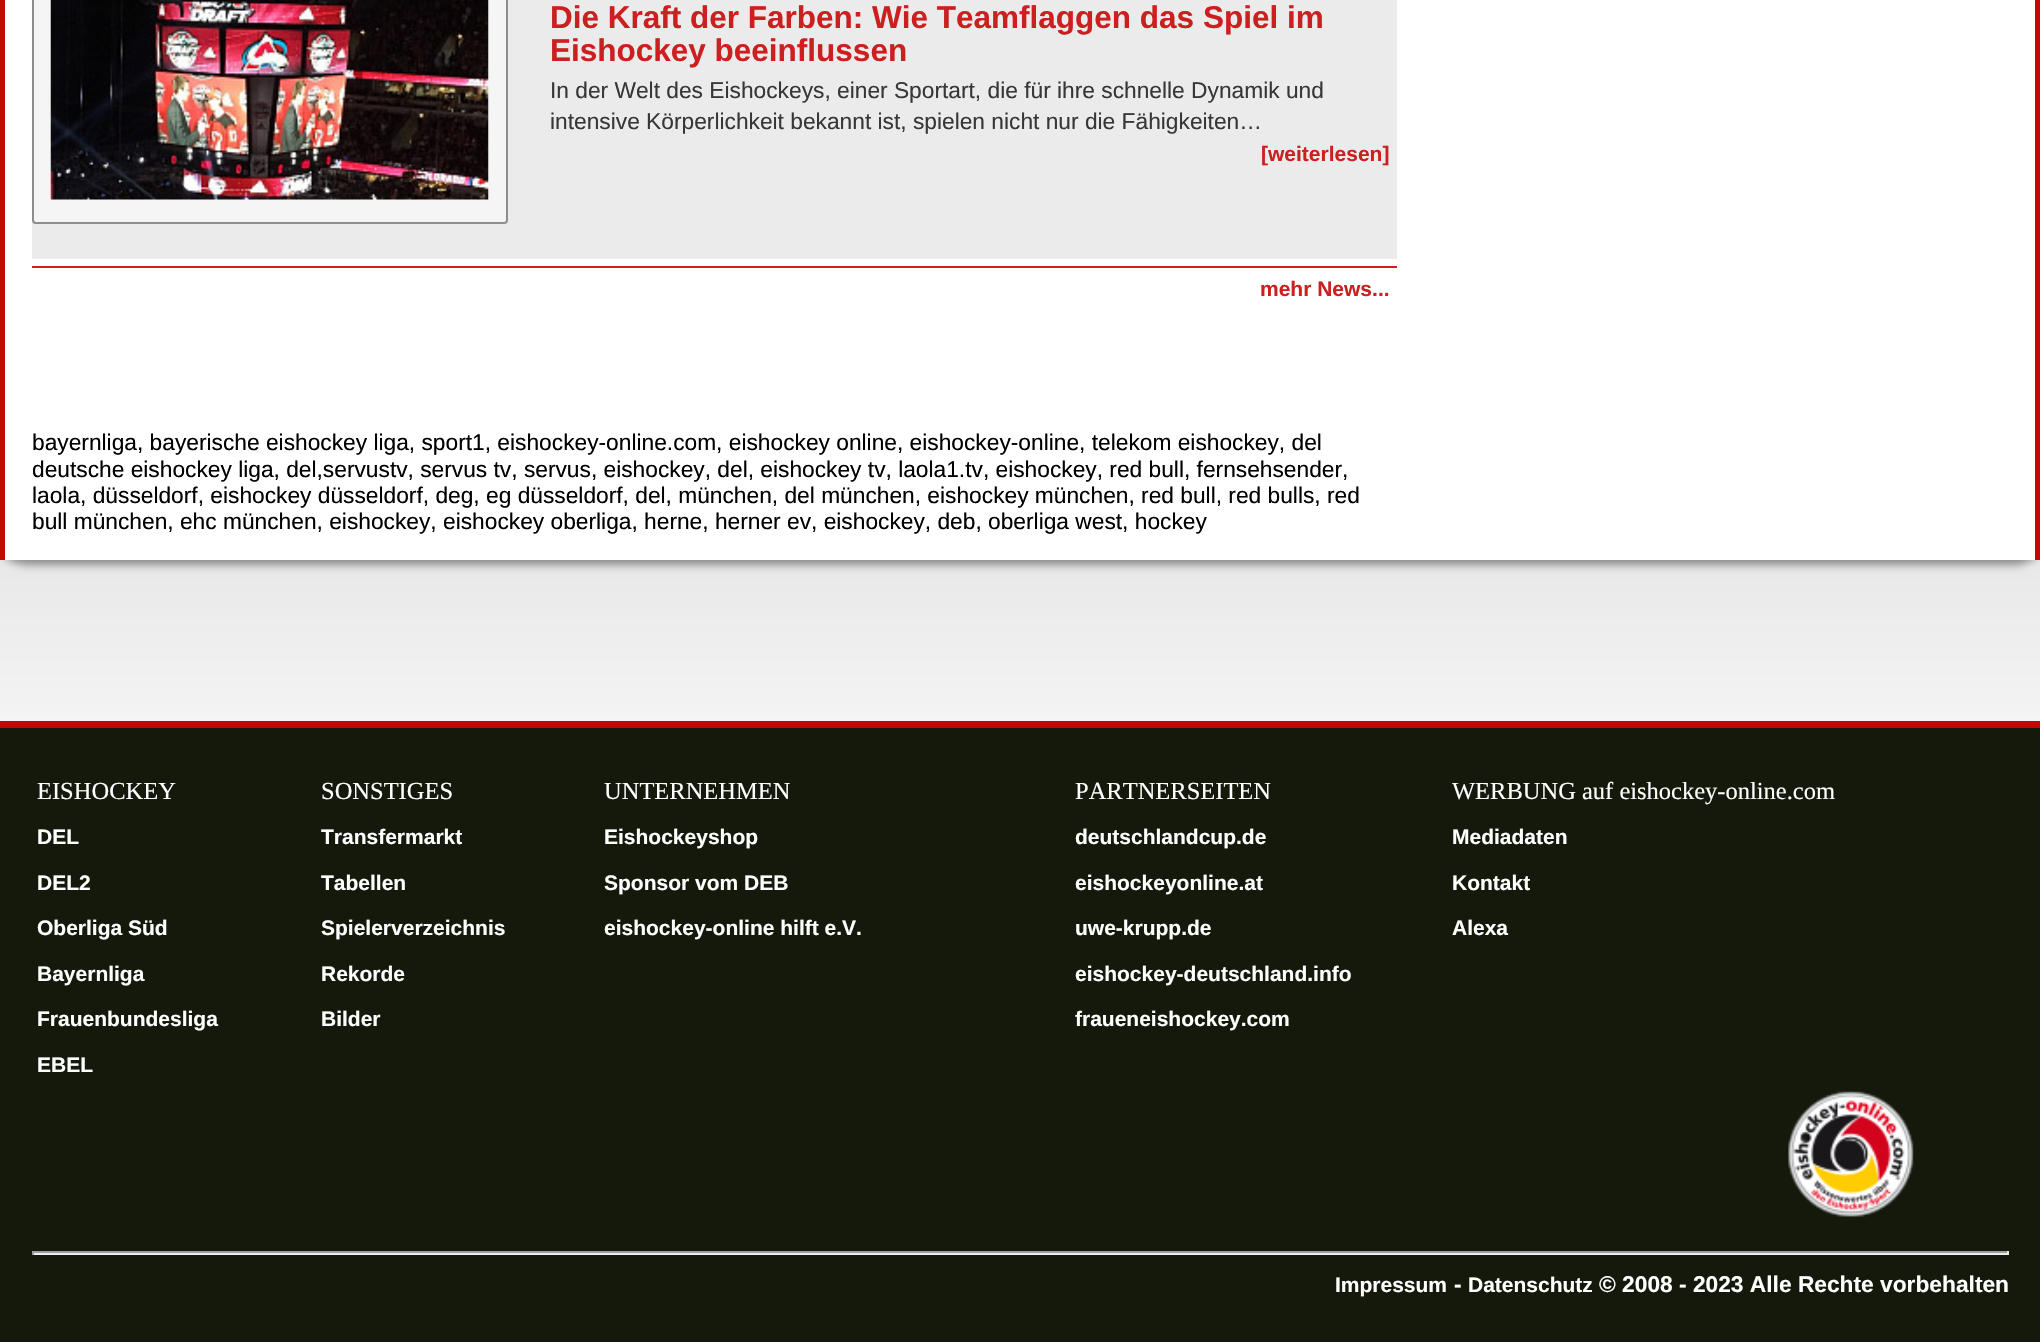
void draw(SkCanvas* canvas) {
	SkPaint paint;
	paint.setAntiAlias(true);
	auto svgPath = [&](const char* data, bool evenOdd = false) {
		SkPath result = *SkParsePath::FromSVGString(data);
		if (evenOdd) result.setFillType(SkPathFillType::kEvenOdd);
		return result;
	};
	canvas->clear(0xffffffff);
	{
		const SkColor colors[] = {0xffbfbfbf, 0xffffffff};
		const float stops[] = {0, 0.65};
		const SkPoint ends[] = {{1020, 0}, {1020, 1342}};
		paint.setShader(SkGradientShader::MakeLinear(ends, colors, stops, 2, SkTileMode::kClamp));
		paint.setAlpha(255);
	}
	canvas->drawRect(SkRect::MakeXYWH(0, 560, 2040, 161), paint);
	paint.setShader(nullptr);
	paint.setColor(0x66000000);
	paint.setMaskFilter(SkMaskFilter::MakeBlur(kNormal_SkBlurStyle, 4.5));
	canvas->drawRoundRect(SkRect::MakeXYWH(-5, -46, 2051, 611), 32, 32, paint);
	paint.setMaskFilter(nullptr);
	paint.setColor(0xffffffff);
	canvas->drawRect(SkRect::MakeXYWH(5, 0, 2030, 560), paint);
	paint.setColor(0xffc10b01);
	canvas->drawPath(svgPath("M26-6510H2014C2029-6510 2040-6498 2040-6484V560H0V-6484C0-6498 12-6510 26-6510ZM26-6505H2014C2026-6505 2035-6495 2035-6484V560H5V-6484C5-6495 15-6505 26-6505Z", true), paint);
	paint.setColor(0xffebebeb);
	canvas->drawRect(SkRect::MakeXYWH(32, 0, 1365, 259), paint);
	paint.setColor(0xfff6f5f5);
	canvas->drawRoundRect(SkRect::MakeXYWH(33, -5, 474, 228), 3, 3, paint);
	paint.setStroke(true);
	paint.setStrokeWidth(2);
	paint.setColor(0xff8e8c8c);
	canvas->drawRoundRect(SkRect::MakeXYWH(33, -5, 474, 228), 3, 3, paint);
	canvas->drawImageRect(SkImages::DeferredFromEncodedData(SkData::MakeFromFileName("img1.png")), SkRect::MakeXYWH(50, 0, 439, 200), SkSamplingOptions());
	SkFont f1(fontMgr->matchFamilyStyle("Liberation Sans", SkFontStyle::Bold()), 31.5);
	f1.setSubpixel(true);
	paint.setStroke(false);
	paint.setColor(0xffcc1f1f);
	canvas->drawString("Die Kraft der Farben: Wie Teamflaggen das Spiel im", 550, 28, f1, paint);
	canvas->drawString("Eishockey beeinflussen", 550, 61, f1, paint);
	SkFont f2(fontMgr->matchFamilyStyle("Liberation Sans", SkFontStyle::Normal()), 22.75);
	f2.setSubpixel(true);
	paint.setColor(0xff373737);
	canvas->drawString("In der Welt des Eishockeys, einer Sportart, die für ihre schnelle Dynamik und", 550, 98, f2, paint);
	canvas->drawString("intensive Körperlichkeit bekannt ist, spielen nicht nur die Fähigkeiten…", 550, 129, f2, paint);
	SkFont f3(fontMgr->matchFamilyStyle("Liberation Sans", SkFontStyle::Bold()), 21);
	f3.setSubpixel(true);
	paint.setColor(0xffcc1f1f);
	canvas->drawString("[weiterlesen]", 1261, 161, f3, paint);
	canvas->drawRect(SkRect::MakeXYWH(32, 266, 1365, 2), paint);
	canvas->drawString("mehr News...", 1260, 296, f3, paint);
	paint.setColor(0xff000000);
	canvas->drawString("bayernliga, bayerische eishockey liga, sport1, eishockey-online.com, eishockey online, eishockey-online, telekom eishockey, del", 32, 450, f2, paint);
	canvas->drawString("deutsche eishockey liga, del,servustv, servus tv, servus, eishockey, del, eishockey tv, laola1.tv, eishockey, red bull, fernsehsender,", 32, 477, f2, paint);
	canvas->drawString("laola, düsseldorf, eishockey düsseldorf, deg, eg düsseldorf, del, münchen, del münchen, eishockey münchen, red bull, red bulls, red", 32, 503, f2, paint);
	canvas->drawString("bull münchen, ehc münchen, eishockey, eishockey oberliga, herne, herner ev, eishockey, deb, oberliga west, hockey", 32, 529, f2, paint);
	paint.setColor(0xff14190b);
	canvas->drawRect(SkRect::MakeXYWH(0, 728, 2040, 614), paint);
	paint.setColor(0xffcb0401);
	canvas->drawRect(SkRect::MakeXYWH(0, 721, 2040, 7), paint);
	SkFont f4(fontMgr->matchFamilyStyle("Liberation Serif", SkFontStyle::Normal()), 24.5);
	f4.setSubpixel(true);
	paint.setColor(0xffffffff);
	canvas->drawString("EISHOCKEY", 37, 799, f4, paint);
	canvas->drawString("SONSTIGES", 321, 799, f4, paint);
	canvas->drawString("UNTERNEHMEN", 604, 799, f4, paint);
	canvas->drawString("PARTNERSEITEN", 1075, 799, f4, paint);
	canvas->drawString("WERBUNG auf eishockey-online.com", 1452, 799, f4, paint);
	canvas->drawString("DEL", 37, 844, f3, paint);
	canvas->drawString("Transfermarkt", 321, 844, f3, paint);
	canvas->drawString("Eishockeyshop", 604, 844, f3, paint);
	canvas->drawString("deutschlandcup.de", 1075, 844, f3, paint);
	canvas->drawString("Mediadaten", 1452, 844, f3, paint);
	canvas->drawString("DEL2", 37, 890, f3, paint);
	canvas->drawString("Tabellen", 321, 890, f3, paint);
	canvas->drawString("Sponsor vom DEB", 604, 890, f3, paint);
	canvas->drawString("eishockeyonline.at", 1075, 890, f3, paint);
	canvas->drawString("Kontakt", 1452, 890, f3, paint);
	canvas->drawString("Oberliga Süd", 37, 935, f3, paint);
	canvas->drawString("Spielerverzeichnis", 321, 935, f3, paint);
	canvas->drawString("eishockey-online hilft e.V.", 604, 935, f3, paint);
	canvas->drawString("uwe-krupp.de", 1075, 935, f3, paint);
	canvas->drawString("Alexa", 1452, 935, f3, paint);
	canvas->drawString("Bayernliga", 37, 981, f3, paint);
	canvas->drawString("Rekorde", 321, 981, f3, paint);
	canvas->drawString("eishockey-deutschland.info", 1075, 981, f3, paint);
	canvas->drawString("Frauenbundesliga", 37, 1026, f3, paint);
	canvas->drawString("Bilder", 321, 1026, f3, paint);
	canvas->drawString("fraueneishockey.com", 1075, 1026, f3, paint);
	canvas->drawString("EBEL", 37, 1072, f3, paint);
	canvas->drawImageRect(SkImages::DeferredFromEncodedData(SkData::MakeFromFileName("img2.png")), SkRect::MakeXYWH(1788, 1091, 126, 126), SkSamplingOptions());
	paint.setColor(0xff9f9f9f);
	canvas->drawRect(SkRect::MakeXYWH(32, 1251, 1977, 2), paint);
	paint.setColor(0xffeeeeee);
	canvas->drawRect(SkRect::MakeXYWH(2007, 1251, 2, 4), paint);
	canvas->drawRect(SkRect::MakeXYWH(32, 1253, 1977, 2), paint);
	paint.setColor(0xff9f9f9f);
	canvas->drawRect(SkRect::MakeXYWH(32, 1251, 2, 4), paint);
	paint.setColor(0xffffffff);
	canvas->drawString("Impressum", 1335, 1292, f3, paint);
	SkFont f5(fontMgr->matchFamilyStyle("Liberation Sans", SkFontStyle::Bold()), 22.75);
	f5.setSubpixel(true);
	canvas->drawString("-", 1454, 1292, f5, paint);
	canvas->drawString("Datenschutz", 1468, 1292, f3, paint);
	canvas->drawString("© 2008 - 2023 Alle Rechte vorbehalten", 1599, 1292, f5, paint);
}
